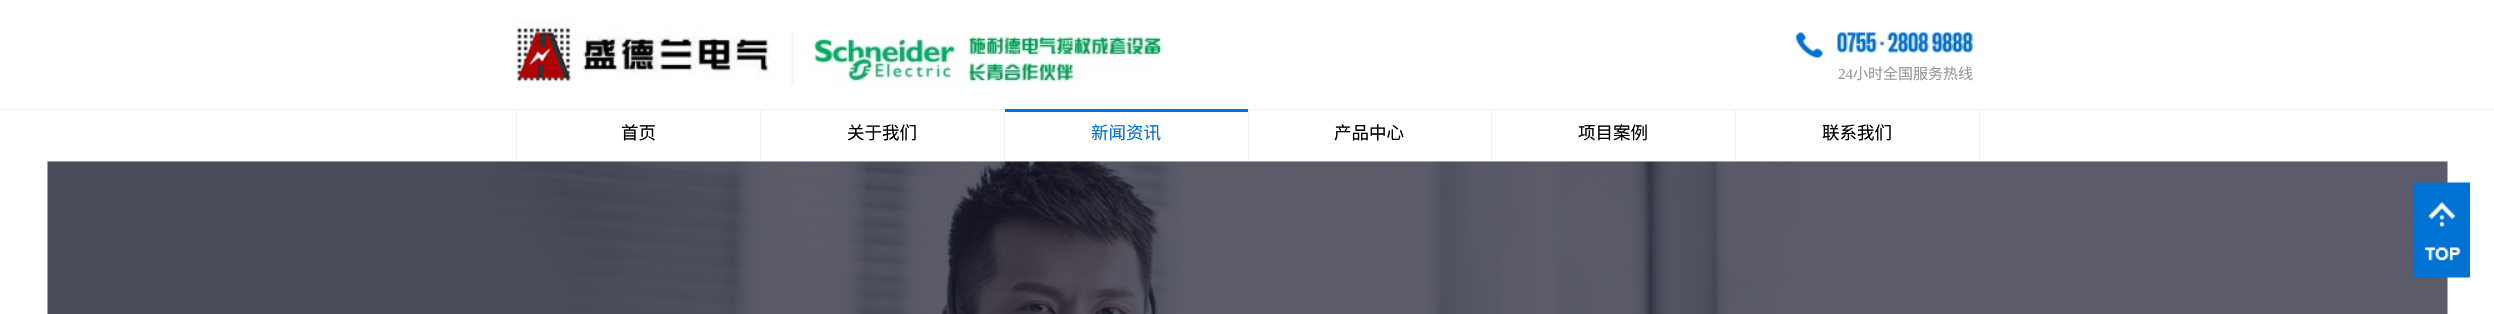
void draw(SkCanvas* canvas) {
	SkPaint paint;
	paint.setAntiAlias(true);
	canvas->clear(0xffffffff);
	paint.setColor(0xffefefef);
	canvas->drawRect(SkRect::MakeXYWH(0, 109, 2494, 1), paint);
	canvas->drawImageRect(SkImages::DeferredFromEncodedData(SkData::MakeFromFileName("img1.png")), SkRect::MakeXYWH(516, 20, 260, 69), SkSamplingOptions());
	canvas->drawImageRect(SkImages::DeferredFromEncodedData(SkData::MakeFromFileName("img2.png")), SkRect::MakeXYWH(791, 31, 371, 55), SkSamplingOptions());
	canvas->drawImageRect(SkImages::DeferredFromEncodedData(SkData::MakeFromFileName("img3.png")), SkRect::MakeXYWH(1796, 32, 27, 26), SkSamplingOptions());
	canvas->drawImageRect(SkImages::DeferredFromEncodedData(SkData::MakeFromFileName("img4.png")), SkRect::MakeXYWH(1837, 32, 141, 21), SkSamplingOptions());
	SkFont f1(fontMgr->matchFamilyStyle("Liberation Serif", SkFontStyle::Normal()), 15);
	f1.setSubpixel(true);
	paint.setColor(0xff999999);
	canvas->drawString("24", 1838, 79, f1, paint);
	SkFont f2(fontMgr->matchFamilyStyle("Noto Sans CJK SC", SkFontStyle::Normal()), 15);
	f2.setSubpixel(true);
	canvas->drawString("小时全国服务热线", 1853, 79, f2, paint);
	paint.setColor(0xffefefef);
	canvas->drawRect(SkRect::MakeXYWH(516, 109, 1, 50), paint);
	SkFont f3(fontMgr->matchFamilyStyle("Noto Sans CJK SC", SkFontStyle::Normal()), 17.5);
	f3.setSubpixel(true);
	paint.setColor(0xff000000);
	canvas->drawString("首页", 621, 139, f3, paint);
	paint.setColor(0xffefefef);
	canvas->drawRect(SkRect::MakeXYWH(760, 109, 1, 50), paint);
	paint.setColor(0xff000000);
	canvas->drawString("关于我们", 847, 139, f3, paint);
	paint.setColor(0xff0072d4);
	canvas->drawRect(SkRect::MakeXYWH(1004, 109, 244, 3), paint);
	paint.setColor(0xffefefef);
	canvas->drawRect(SkRect::MakeXYWH(1004, 109, 1, 50), paint);
	paint.setColor(0xff0072d4);
	canvas->drawString("新闻资讯", 1091, 139, f3, paint);
	paint.setColor(0xffefefef);
	canvas->drawRect(SkRect::MakeXYWH(1248, 109, 1, 50), paint);
	paint.setColor(0xff000000);
	canvas->drawString("产品中心", 1334, 139, f3, paint);
	paint.setColor(0xffefefef);
	canvas->drawRect(SkRect::MakeXYWH(1491, 109, 1, 50), paint);
	paint.setColor(0xff000000);
	canvas->drawString("项目案例", 1578, 139, f3, paint);
	paint.setColor(0xffefefef);
	canvas->drawRect(SkRect::MakeXYWH(1979, 109, 1, 50), paint);
	canvas->drawRect(SkRect::MakeXYWH(1735, 109, 1, 50), paint);
	paint.setColor(0xff000000);
	canvas->drawString("联系我们", 1822, 139, f3, paint);
	canvas->drawImageRect(SkImages::DeferredFromEncodedData(SkData::MakeFromFileName("img5.png")), SkRect::MakeXYWH(47, 161, 2401, 153), SkSamplingOptions());
	canvas->drawImageRect(SkImages::DeferredFromEncodedData(SkData::MakeFromFileName("img6.png")), SkRect::MakeXYWH(2413, 182, 57, 96), SkSamplingOptions());
}
